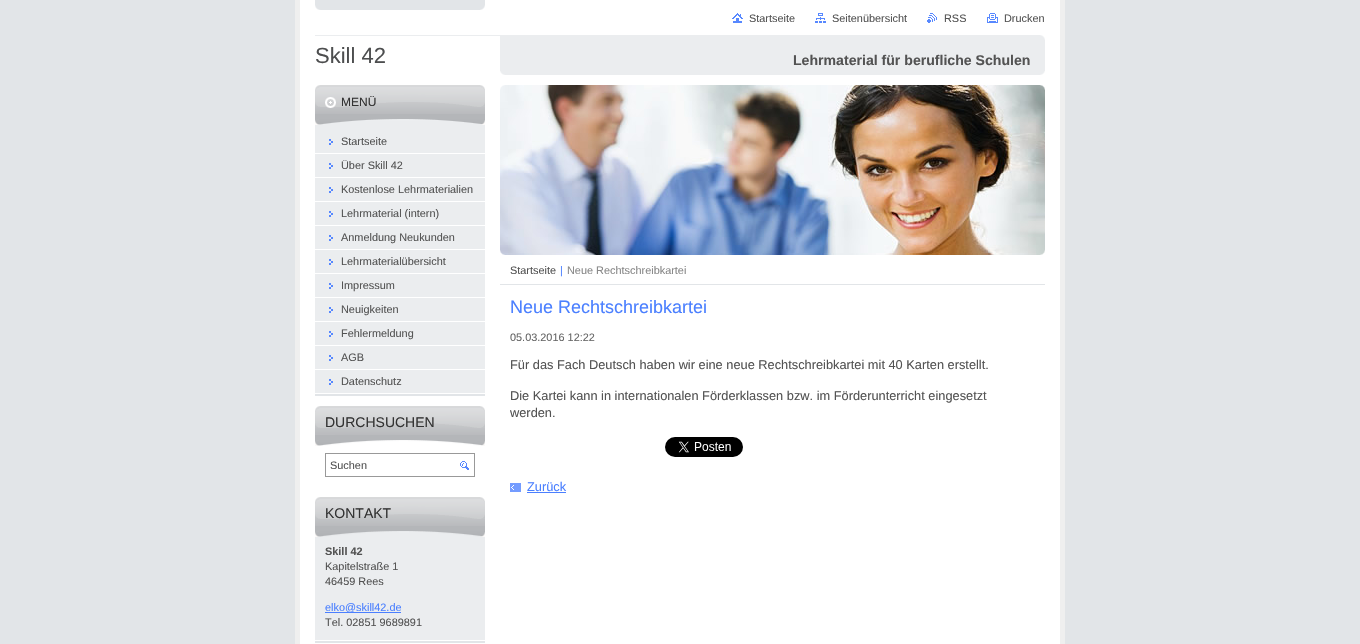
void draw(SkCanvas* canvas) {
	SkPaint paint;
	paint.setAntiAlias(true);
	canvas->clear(0xffe2e5e8);
	paint.setColor(0xffffffff);
	canvas->drawRect(SkRect::MakeXYWH(300, 0, 760, 644), paint);
	canvas->drawImageRect(SkImages::DeferredFromEncodedData(SkData::MakeFromFileName("img1.png")), SkRect::MakeXYWH(315, 0, 170, 10), SkSamplingOptions());
	paint.setColor(0xffefefef);
	canvas->drawRect(SkRect::MakeXYWH(1060, 0, 5, 644), paint);
	canvas->drawRect(SkRect::MakeXYWH(295, 0, 5, 644), paint);
	canvas->drawImageRect(SkImages::DeferredFromEncodedData(SkData::MakeFromFileName("img2.png")), SkRect::MakeXYWH(732, 13, 11, 10), SkSamplingOptions());
	SkFont f1(fontMgr->matchFamilyStyle("Liberation Sans", SkFontStyle::Normal()), 10.9);
	f1.setSubpixel(true);
	paint.setColor(0xff535353);
	canvas->drawString("Startseite", 749, 22, f1, paint);
	canvas->drawImageRect(SkImages::DeferredFromEncodedData(SkData::MakeFromFileName("img3.png")), SkRect::MakeXYWH(815, 13, 11, 10), SkSamplingOptions());
	canvas->drawString("Seitenübersicht", 832, 22, f1, paint);
	canvas->drawImageRect(SkImages::DeferredFromEncodedData(SkData::MakeFromFileName("img4.png")), SkRect::MakeXYWH(927, 13, 10, 10), SkSamplingOptions());
	canvas->drawString("RSS", 944, 22, f1, paint);
	canvas->drawImageRect(SkImages::DeferredFromEncodedData(SkData::MakeFromFileName("img5.png")), SkRect::MakeXYWH(987, 13, 11, 10), SkSamplingOptions());
	canvas->drawString("Drucken", 1004, 22, f1, paint);
	canvas->drawImageRect(SkImages::DeferredFromEncodedData(SkData::MakeFromFileName("img6.png")), SkRect::MakeXYWH(315, 35, 730, 6), SkSamplingOptions());
	SkFont f2(fontMgr->matchFamilyStyle("Liberation Sans", SkFontStyle::Normal()), 22);
	f2.setSubpixel(true);
	paint.setColor(0xff4d4e4f);
	canvas->drawString("Skill 42", 315, 63, f2, paint);
	paint.setColor(0xffebedef);
	canvas->drawRect(SkRect::MakeXYWH(500, 41, 545, 30), paint);
	canvas->drawImageRect(SkImages::DeferredFromEncodedData(SkData::MakeFromFileName("img7.png")), SkRect::MakeXYWH(500, 71, 545, 4), SkSamplingOptions());
	SkFont f3(fontMgr->matchFamilyStyle("Liberation Sans", SkFontStyle::Bold()), 14.1);
	f3.setSubpixel(true);
	paint.setColor(0xff535353);
	canvas->drawString("Lehrmaterial für berufliche Schulen", 793, 65, f3, paint);
	paint.setColor(0xffe2e5e8);
	canvas->drawRect(SkRect::MakeXYWH(315, 394, 170, 2), paint);
	paint.setColor(0xffebedef);
	canvas->drawRect(SkRect::MakeXYWH(315, 125, 170, 268), paint);
	paint.setColor(0xffb4b6b9);
	canvas->drawRect(SkRect::MakeXYWH(315, 114, 170, 5), paint);
	canvas->drawImageRect(SkImages::DeferredFromEncodedData(SkData::MakeFromFileName("img8.png")), SkRect::MakeXYWH(315, 85, 170, 29), SkSamplingOptions());
	canvas->drawImageRect(SkImages::DeferredFromEncodedData(SkData::MakeFromFileName("img9.png")), SkRect::MakeXYWH(315, 119, 170, 6), SkSamplingOptions());
	SkFont f4(fontMgr->matchFamilyStyle("Liberation Sans", SkFontStyle::Normal()), 12);
	f4.setSubpixel(true);
	paint.setColor(0xff333333);
	canvas->drawString("MENÜ", 341, 106, f4, paint);
	canvas->drawImageRect(SkImages::DeferredFromEncodedData(SkData::MakeFromFileName("img10.png")), SkRect::MakeXYWH(329, 139, 4, 6), SkSamplingOptions());
	paint.setColor(0xffffffff);
	canvas->drawRect(SkRect::MakeXYWH(315, 153, 170, 1), paint);
	paint.setColor(0xff535353);
	canvas->drawString("Startseite", 341, 145, f1, paint);
	canvas->drawImageRect(SkImages::DeferredFromEncodedData(SkData::MakeFromFileName("img10.png")), SkRect::MakeXYWH(329, 163, 4, 6), SkSamplingOptions());
	paint.setColor(0xffffffff);
	canvas->drawRect(SkRect::MakeXYWH(315, 177, 170, 1), paint);
	paint.setColor(0xff535353);
	canvas->drawString("Über Skill 42", 341, 169, f1, paint);
	canvas->drawImageRect(SkImages::DeferredFromEncodedData(SkData::MakeFromFileName("img10.png")), SkRect::MakeXYWH(329, 187, 4, 6), SkSamplingOptions());
	paint.setColor(0xffffffff);
	canvas->drawRect(SkRect::MakeXYWH(315, 201, 170, 1), paint);
	paint.setColor(0xff535353);
	canvas->drawString("Kostenlose Lehrmaterialien", 341, 193, f1, paint);
	canvas->drawImageRect(SkImages::DeferredFromEncodedData(SkData::MakeFromFileName("img10.png")), SkRect::MakeXYWH(329, 211, 4, 6), SkSamplingOptions());
	paint.setColor(0xffffffff);
	canvas->drawRect(SkRect::MakeXYWH(315, 225, 170, 1), paint);
	paint.setColor(0xff535353);
	canvas->drawString("Lehrmaterial (intern)", 341, 217, f1, paint);
	canvas->drawImageRect(SkImages::DeferredFromEncodedData(SkData::MakeFromFileName("img10.png")), SkRect::MakeXYWH(329, 235, 4, 6), SkSamplingOptions());
	paint.setColor(0xffffffff);
	canvas->drawRect(SkRect::MakeXYWH(315, 249, 170, 1), paint);
	paint.setColor(0xff535353);
	canvas->drawString("Anmeldung Neukunden", 341, 241, f1, paint);
	canvas->drawImageRect(SkImages::DeferredFromEncodedData(SkData::MakeFromFileName("img10.png")), SkRect::MakeXYWH(329, 259, 4, 6), SkSamplingOptions());
	paint.setColor(0xffffffff);
	canvas->drawRect(SkRect::MakeXYWH(315, 273, 170, 1), paint);
	paint.setColor(0xff535353);
	canvas->drawString("Lehrmaterialübersicht", 341, 265, f1, paint);
	canvas->drawImageRect(SkImages::DeferredFromEncodedData(SkData::MakeFromFileName("img10.png")), SkRect::MakeXYWH(329, 283, 4, 6), SkSamplingOptions());
	paint.setColor(0xffffffff);
	canvas->drawRect(SkRect::MakeXYWH(315, 297, 170, 1), paint);
	paint.setColor(0xff535353);
	canvas->drawString("Impressum", 341, 289, f1, paint);
	canvas->drawImageRect(SkImages::DeferredFromEncodedData(SkData::MakeFromFileName("img10.png")), SkRect::MakeXYWH(329, 307, 4, 6), SkSamplingOptions());
	paint.setColor(0xffffffff);
	canvas->drawRect(SkRect::MakeXYWH(315, 321, 170, 1), paint);
	paint.setColor(0xff535353);
	canvas->drawString("Neuigkeiten", 341, 313, f1, paint);
	canvas->drawImageRect(SkImages::DeferredFromEncodedData(SkData::MakeFromFileName("img10.png")), SkRect::MakeXYWH(329, 331, 4, 6), SkSamplingOptions());
	paint.setColor(0xffffffff);
	canvas->drawRect(SkRect::MakeXYWH(315, 345, 170, 1), paint);
	paint.setColor(0xff535353);
	canvas->drawString("Fehlermeldung", 341, 337, f1, paint);
	canvas->drawImageRect(SkImages::DeferredFromEncodedData(SkData::MakeFromFileName("img10.png")), SkRect::MakeXYWH(329, 355, 4, 6), SkSamplingOptions());
	paint.setColor(0xffffffff);
	canvas->drawRect(SkRect::MakeXYWH(315, 369, 170, 1), paint);
	paint.setColor(0xff535353);
	canvas->drawString("AGB", 341, 361, f1, paint);
	canvas->drawImageRect(SkImages::DeferredFromEncodedData(SkData::MakeFromFileName("img10.png")), SkRect::MakeXYWH(329, 379, 4, 6), SkSamplingOptions());
	canvas->drawString("Datenschutz", 341, 385, f1, paint);
	paint.setColor(0xffb4b6b9);
	canvas->drawRect(SkRect::MakeXYWH(315, 435, 170, 6), paint);
	canvas->drawImageRect(SkImages::DeferredFromEncodedData(SkData::MakeFromFileName("img11.png")), SkRect::MakeXYWH(315, 406, 170, 29), SkSamplingOptions());
	canvas->drawImageRect(SkImages::DeferredFromEncodedData(SkData::MakeFromFileName("img12.png")), SkRect::MakeXYWH(315, 440, 170, 6), SkSamplingOptions());
	SkFont f5(fontMgr->matchFamilyStyle("Liberation Sans", SkFontStyle::Normal()), 14);
	f5.setSubpixel(true);
	paint.setColor(0xff333333);
	canvas->drawString("DURCHSUCHEN", 325, 427, f5, paint);
	paint.setStroke(true);
	paint.setStrokeWidth(1);
	paint.setColor(0xff999999);
	canvas->drawRect(SkRect::MakeXYWH(325.5, 453.5, 149, 23), paint);
	paint.setStroke(false);
	paint.setColor(0xff535353);
	canvas->drawString("Suchen", 330, 469, f1, paint);
	canvas->drawImageRect(SkImages::DeferredFromEncodedData(SkData::MakeFromFileName("img13.png")), SkRect::MakeXYWH(460, 461, 9, 9), SkSamplingOptions());
	paint.setColor(0xffe2e5e8);
	canvas->drawRect(SkRect::MakeXYWH(315, 641, 170, 2), paint);
	paint.setColor(0xffebedef);
	canvas->drawRect(SkRect::MakeXYWH(315, 537, 170, 103), paint);
	paint.setColor(0xffb4b6b9);
	canvas->drawRect(SkRect::MakeXYWH(315, 526, 170, 6), paint);
	canvas->drawImageRect(SkImages::DeferredFromEncodedData(SkData::MakeFromFileName("img14.png")), SkRect::MakeXYWH(315, 497, 170, 29), SkSamplingOptions());
	canvas->drawImageRect(SkImages::DeferredFromEncodedData(SkData::MakeFromFileName("img15.png")), SkRect::MakeXYWH(315, 531, 170, 6), SkSamplingOptions());
	paint.setColor(0xff333333);
	canvas->drawString("KONTAKT", 325, 518, f5, paint);
	SkFont f6(fontMgr->matchFamilyStyle("Liberation Sans", SkFontStyle::Bold()), 10.9);
	f6.setSubpixel(true);
	paint.setColor(0xff535353);
	canvas->drawString("Skill 42", 325, 555, f6, paint);
	canvas->drawString("Kapitelstraße 1", 325, 570, f1, paint);
	canvas->drawString("46459 Rees", 325, 585, f1, paint);
	paint.setColor(0xff4b7fff);
	canvas->drawRect(SkRect::MakeXYWH(325, 612, 76, 1), paint);
	paint.setColor(0xff4b80ff);
	canvas->drawString("elko@skill42.de", 325, 611, f1, paint);
	paint.setColor(0xff535353);
	canvas->drawString("Tel. 02851 9689891", 325, 626, f1, paint);
	canvas->drawImageRect(SkImages::DeferredFromEncodedData(SkData::MakeFromFileName("img16.png")), SkRect::MakeXYWH(500, 85, 545, 170), SkSamplingOptions());
	canvas->drawImageRect(SkImages::DeferredFromEncodedData(SkData::MakeFromFileName("img17.png")), SkRect::MakeXYWH(500, 85, 545, 170), SkSamplingOptions());
	paint.setColor(0xffe2e5e8);
	canvas->drawRect(SkRect::MakeXYWH(500, 284, 545, 1), paint);
	paint.setColor(0xff535353);
	canvas->drawString("Startseite", 510, 274, f1, paint);
	paint.setColor(0xff4b80ff);
	canvas->drawString("|", 560, 274, f1, paint);
	paint.setColor(0xff878787);
	canvas->drawString("Neue Rechtschreibkartei", 567, 274, f1, paint);
	SkFont f7(fontMgr->matchFamilyStyle("Liberation Sans", SkFontStyle::Normal()), 18);
	f7.setSubpixel(true);
	paint.setColor(0xff4b80ff);
	canvas->drawString("Neue Rechtschreibkartei", 510, 313, f7, paint);
	paint.setColor(0xff666666);
	canvas->drawString("05.03.2016 12:22", 510, 341, f1, paint);
	SkFont f8(fontMgr->matchFamilyStyle("Liberation Sans", SkFontStyle::Normal()), 12.8);
	f8.setSubpixel(true);
	paint.setColor(0xff535353);
	canvas->drawString("Für das Fach Deutsch haben wir eine neue Rechtschreibkartei mit 40 Karten erstellt.", 510, 369, f8, paint);
	canvas->drawString("Die Kartei kann in internationalen Förderklassen bzw. im Förderunterricht eingesetzt", 510, 400, f8, paint);
	canvas->drawString("werden.", 510, 417, f8, paint);
	canvas->drawImageRect(SkImages::DeferredFromEncodedData(SkData::MakeFromFileName("img18.png")), SkRect::MakeXYWH(665, 437, 78, 20), SkSamplingOptions());
	canvas->drawImageRect(SkImages::DeferredFromEncodedData(SkData::MakeFromFileName("img19.png")), SkRect::MakeXYWH(510, 483, 11, 9), SkSamplingOptions());
	paint.setColor(0xff4b80ff);
	canvas->drawString("Zurück", 527, 491, f8, paint);
	paint.setColor(0xff4b7fff);
	canvas->drawRect(SkRect::MakeXYWH(527, 492, 39, 1), paint);
}
